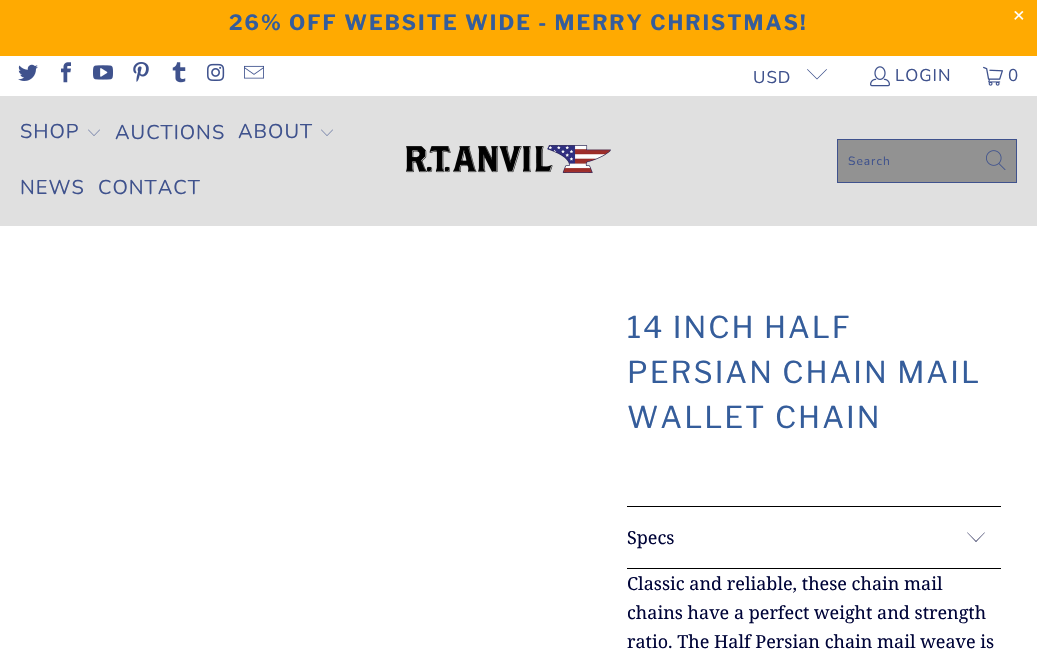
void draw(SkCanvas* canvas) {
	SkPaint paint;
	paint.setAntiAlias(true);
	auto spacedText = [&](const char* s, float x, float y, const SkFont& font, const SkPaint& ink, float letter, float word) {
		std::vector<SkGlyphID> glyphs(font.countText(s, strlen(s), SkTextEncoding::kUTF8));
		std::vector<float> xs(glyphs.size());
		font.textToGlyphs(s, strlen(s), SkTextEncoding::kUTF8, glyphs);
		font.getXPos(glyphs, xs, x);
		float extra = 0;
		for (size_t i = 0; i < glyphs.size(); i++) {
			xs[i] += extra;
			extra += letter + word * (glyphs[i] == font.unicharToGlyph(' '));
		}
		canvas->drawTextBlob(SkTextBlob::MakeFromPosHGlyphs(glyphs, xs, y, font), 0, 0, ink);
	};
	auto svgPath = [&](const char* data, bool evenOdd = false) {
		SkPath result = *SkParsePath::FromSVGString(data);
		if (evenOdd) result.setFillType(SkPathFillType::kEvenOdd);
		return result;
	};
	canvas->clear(0xffffffff);
	paint.setColor(0xffffaa01);
	canvas->drawRect(SkRect::MakeXYWH(0, 0, 1037, 56), paint);
	SkFont f1(fontMgr->matchFamilyStyle("Libre Franklin", SkFontStyle::Bold()), 21);
	f1.setSubpixel(true);
	paint.setColor(0xff355d9b);
	spacedText("26% OFF WEBSITE WIDE - MERRY CHRISTMAS!", 229, 30, f1, paint, 2, 0);
	SkFont f2(fontMgr->matchFamilyStyle("Liberation Sans", SkFontStyle::Normal()), 20);
	f2.setSubpixel(true);
	paint.setColor(0xffffffff);
	spacedText("×", 1013, 22, f2, paint, 2, 0);
	canvas->drawImageRect(SkImages::DeferredFromEncodedData(SkData::MakeFromFileName("img1.png")), SkRect::MakeXYWH(18, 64, 20, 17), SkSamplingOptions());
	canvas->drawImageRect(SkImages::DeferredFromEncodedData(SkData::MakeFromFileName("img2.png")), SkRect::MakeXYWH(61, 62, 10, 21), SkSamplingOptions());
	canvas->drawImageRect(SkImages::DeferredFromEncodedData(SkData::MakeFromFileName("img3.png")), SkRect::MakeXYWH(93, 65, 20, 15), SkSamplingOptions());
	canvas->drawImageRect(SkImages::DeferredFromEncodedData(SkData::MakeFromFileName("img4.png")), SkRect::MakeXYWH(133, 62, 16, 20), SkSamplingOptions());
	canvas->drawImageRect(SkImages::DeferredFromEncodedData(SkData::MakeFromFileName("img5.png")), SkRect::MakeXYWH(172, 62, 14, 21), SkSamplingOptions());
	canvas->drawImageRect(SkImages::DeferredFromEncodedData(SkData::MakeFromFileName("img6.png")), SkRect::MakeXYWH(207, 63, 18, 18), SkSamplingOptions());
	canvas->drawImageRect(SkImages::DeferredFromEncodedData(SkData::MakeFromFileName("img7.png")), SkRect::MakeXYWH(244, 65, 20, 14), SkSamplingOptions());
	SkFont f3(fontMgr->matchFamilyStyle("Nunito", SkFontStyle::Normal()), 17);
	f3.setSubpixel(true);
	paint.setColor(0xff3f528d);
	spacedText("USD", 753, 83, f3, paint, 1, 0);
	canvas->drawPath(svgPath("M817 79.5L807 69.5L807.5 69L817 78.5L826.5 69L827 69.5Z"), paint);
	canvas->drawImageRect(SkImages::DeferredFromEncodedData(SkData::MakeFromFileName("img8.png")), SkRect::MakeXYWH(870, 66, 20, 21), SkSamplingOptions());
	spacedText("LOGIN", 895, 81, f3, paint, 1, 0);
	canvas->drawImageRect(SkImages::DeferredFromEncodedData(SkData::MakeFromFileName("img9.png")), SkRect::MakeXYWH(983, 66, 20, 20), SkSamplingOptions());
	spacedText("0", 1008, 81, f3, paint, 1, 0);
	paint.setColor(0xffe0e0e0);
	canvas->drawRect(SkRect::MakeXYWH(0, 96, 1037, 130), paint);
	SkFont f4(fontMgr->matchFamilyStyle("Nunito", SkFontStyle::Normal()), 20);
	f4.setSubpixel(true);
	paint.setColor(0xff3f528d);
	spacedText("SHOP", 20, 138, f4, paint, 1, 0);
	canvas->drawImageRect(SkImages::DeferredFromEncodedData(SkData::MakeFromFileName("img10.png")), SkRect::MakeXYWH(88, 129, 12, 7), SkSamplingOptions());
	spacedText("AUCTIONS", 115, 139, f4, paint, 1, 0);
	spacedText("ABOUT", 238, 138, f4, paint, 1, 0);
	canvas->drawImageRect(SkImages::DeferredFromEncodedData(SkData::MakeFromFileName("img10.png")), SkRect::MakeXYWH(321, 129, 12, 7), SkSamplingOptions());
	spacedText("NEWS", 20, 194, f4, paint, 1, 0);
	spacedText("CONTACT", 98, 194, f4, paint, 1, 0);
	canvas->drawImageRect(SkImages::DeferredFromEncodedData(SkData::MakeFromFileName("img11.png")), SkRect::MakeXYWH(406, 145, 205, 28), SkSamplingOptions());
	paint.setColor(0xff929292);
	canvas->drawRect(SkRect::MakeXYWH(837.5, 139.5, 179, 43), paint);
	paint.setStroke(true);
	paint.setStrokeWidth(1);
	paint.setColor(0xff3f528d);
	canvas->drawRect(SkRect::MakeXYWH(837.5, 139.5, 179, 43), paint);
	SkFont f5(fontMgr->matchFamilyStyle("Nunito", SkFontStyle::Normal()), 12);
	f5.setSubpixel(true);
	paint.setStroke(false);
	spacedText("Search", 848, 165, f5, paint, 1, 0);
	canvas->drawImageRect(SkImages::DeferredFromEncodedData(SkData::MakeFromFileName("img12.png")), SkRect::MakeXYWH(986, 150, 20, 20), SkSamplingOptions());
	SkFont f6(fontMgr->matchFamilyStyle("Libre Franklin", SkFontStyle::Normal()), 30);
	f6.setSubpixel(true);
	paint.setColor(0xff355d9b);
	spacedText("14 INCH HALF", 627, 338, f6, paint, 2, 0);
	spacedText("PERSIAN CHAIN MAIL", 627, 383, f6, paint, 2, 0);
	spacedText("WALLET CHAIN", 627, 428, f6, paint, 2, 0);
	paint.setColor(0xff000000);
	canvas->drawRect(SkRect::MakeXYWH(627, 506, 374, 1), paint);
	canvas->drawRect(SkRect::MakeXYWH(627, 568, 374, 1), paint);
	SkFont f7(fontMgr->matchFamilyStyle("Noto Serif", SkFontStyle::Normal()), 18);
	f7.setSubpixel(true);
	paint.setColor(0xff000438);
	canvas->drawString("Specs", 627, 544, f7, paint);
	canvas->drawPath(svgPath("M976 542L967 532.5H967.5L976 541L984.5 532.5H985Z"), paint);
	canvas->drawString("Classic and reliable, these chain mail", 627, 590, f7, paint);
	canvas->drawString("chains have a perfect weight and strength", 627, 619, f7, paint);
	canvas->drawString("ratio. The Half Persian chain mail weave is", 627, 648, f7, paint);
}
